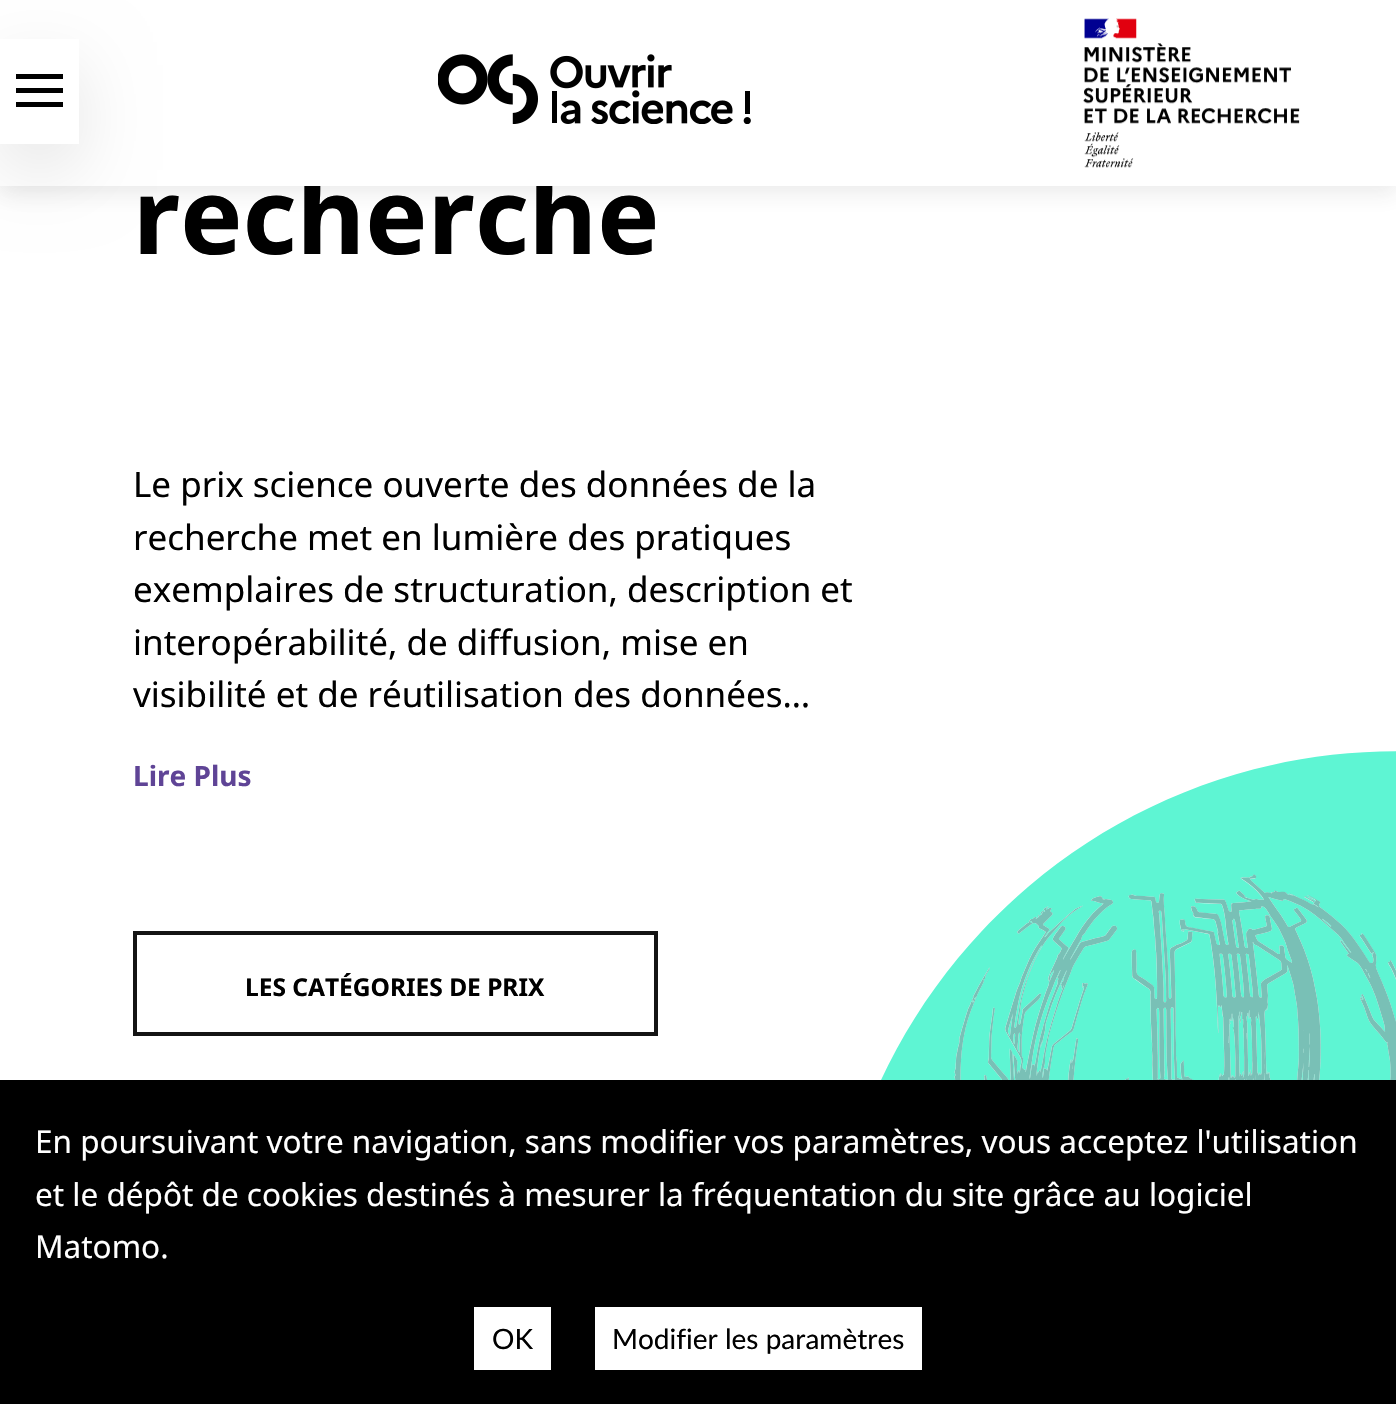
void draw(SkCanvas* canvas) {
	SkPaint paint;
	paint.setAntiAlias(true);
	canvas->clear(0xffffffff);
	paint.setColor(0x1a333333);
	paint.setMaskFilter(SkMaskFilter::MakeBlur(kNormal_SkBlurStyle, 10.5));
	canvas->drawRect(SkRect::MakeXYWH(0, 7, 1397, 186), paint);
	paint.setMaskFilter(nullptr);
	SkFont f1(fontMgr->matchFamilyStyle("Noto Sans", SkFontStyle::Bold()), 105);
	f1.setSubpixel(true);
	paint.setColor(0xff000000);
	canvas->drawString("recherche", 133, 254, f1, paint);
	paint.setColor(0xffffffff);
	canvas->drawRect(SkRect::MakeXYWH(0, 0, 1396, 186), paint);
	paint.setColor(0x1a000000);
	paint.setMaskFilter(SkMaskFilter::MakeBlur(kNormal_SkBlurStyle, 35));
	canvas->drawRect(SkRect::MakeXYWH(0, 65, 79, 105), paint);
	paint.setMaskFilter(nullptr);
	paint.setColor(0xffffffff);
	canvas->drawRect(SkRect::MakeXYWH(0, 39, 79, 105), paint);
	paint.setColor(0xff000000);
	canvas->drawRect(SkRect::MakeXYWH(16, 102, 47, 5), paint);
	canvas->drawRect(SkRect::MakeXYWH(16, 88, 47, 5), paint);
	canvas->drawRect(SkRect::MakeXYWH(16, 74, 47, 5), paint);
	canvas->drawImageRect(SkImages::DeferredFromEncodedData(SkData::MakeFromFileName("img1.png")), SkRect::MakeXYWH(438, 54, 313, 70), SkSamplingOptions());
	canvas->drawImageRect(SkImages::DeferredFromEncodedData(SkData::MakeFromFileName("img2.png")), SkRect::MakeXYWH(1083, 18, 217, 150), SkSamplingOptions());
	canvas->drawImageRect(SkImages::DeferredFromEncodedData(SkData::MakeFromFileName("img3.png")), SkRect::MakeXYWH(881, 751, 515, 329), SkSamplingOptions());
	SkFont f2(fontMgr->matchFamilyStyle("Noto Sans", SkFontStyle::Normal()), 35);
	f2.setSubpixel(true);
	canvas->drawString("Le prix science ouverte des données de la", 133, 497, f2, paint);
	canvas->drawString("recherche met en lumière des pratiques", 133, 550, f2, paint);
	canvas->drawString("exemplaires de structuration, description et", 133, 602, f2, paint);
	canvas->drawString("interopérabilité, de diffusion, mise en", 133, 655, f2, paint);
	canvas->drawString("visibilité et de réutilisation des données…", 133, 707, f2, paint);
	SkFont f3(fontMgr->matchFamilyStyle("Noto Sans", SkFontStyle::Bold()), 28);
	f3.setSubpixel(true);
	paint.setColor(0xff5f4496);
	canvas->drawString("Lire Plus", 133, 786, f3, paint);
	paint.setStroke(true);
	paint.setStrokeWidth(4);
	paint.setColor(0xff141414);
	canvas->drawRect(SkRect::MakeXYWH(135, 933, 521, 101), paint);
	SkFont f4(fontMgr->matchFamilyStyle("Noto Sans", SkFontStyle::Bold()), 24.5);
	f4.setSubpixel(true);
	paint.setStroke(false);
	paint.setColor(0xff000000);
	canvas->drawString("LES CATÉGORIES DE PRIX", 245, 996, f4, paint);
	canvas->drawRect(SkRect::MakeXYWH(0, 1080, 1396, 324), paint);
	SkFont f5(fontMgr->matchFamilyStyle("Noto Sans", SkFontStyle::Normal()), 31.5);
	f5.setSubpixel(true);
	paint.setColor(0xffffffff);
	canvas->drawString("En poursuivant votre navigation, sans modifier vos paramètres, vous acceptez l'utilisation", 35, 1153, f5, paint);
	canvas->drawString("et le dépôt de cookies destinés à mesurer la fréquentation du site grâce au logiciel", 35, 1206, f5, paint);
	canvas->drawString("Matomo.", 35, 1258, f5, paint);
	canvas->drawRect(SkRect::MakeXYWH(474, 1307, 77, 63), paint);
	SkFont f6(fontMgr->matchFamilyStyle("Lato", SkFontStyle::Normal()), 28);
	f6.setSubpixel(true);
	paint.setColor(0xff000000);
	canvas->drawString("OK", 492, 1349, f6, paint);
	paint.setColor(0xffffffff);
	canvas->drawRect(SkRect::MakeXYWH(595, 1307, 327, 63), paint);
	paint.setColor(0xff000000);
	canvas->drawString("Modifier les paramètres", 612, 1349, f6, paint);
}
